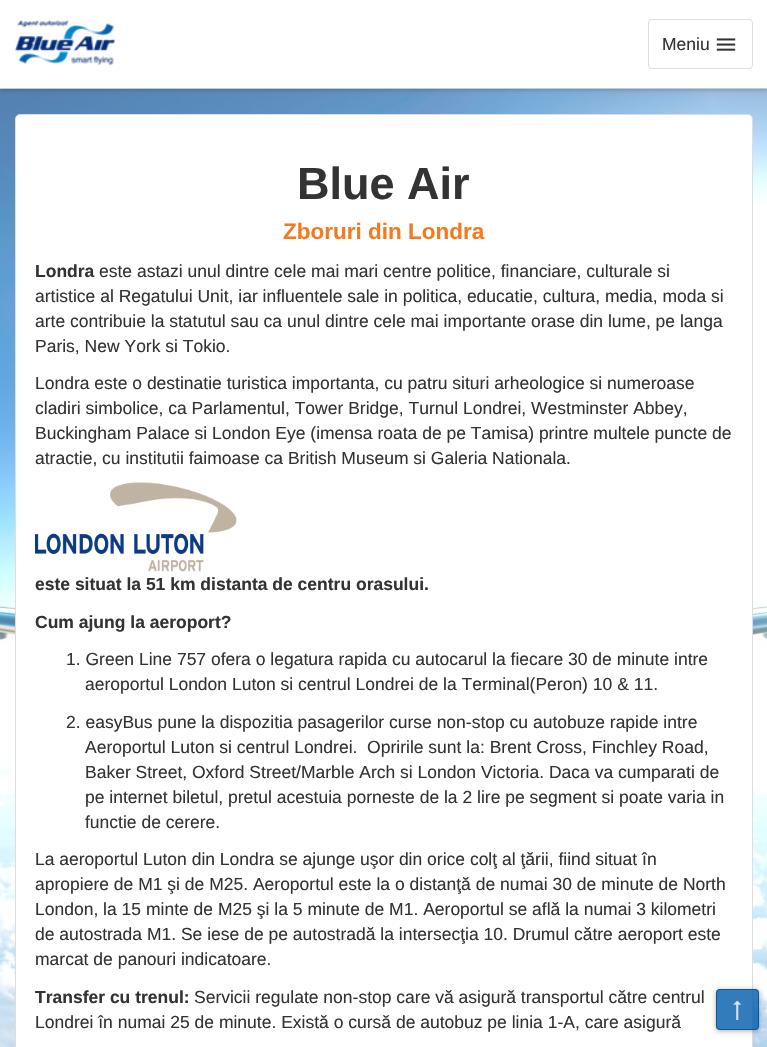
void draw(SkCanvas* canvas) {
	SkPaint paint;
	paint.setAntiAlias(true);
	auto svgPath = [&](const char* data, bool evenOdd = false) {
		SkPath result = *SkParsePath::FromSVGString(data);
		if (evenOdd) result.setFillType(SkPathFillType::kEvenOdd);
		return result;
	};
	canvas->clear(0xffffffff);
	canvas->drawImageRect(SkImages::DeferredFromEncodedData(SkData::MakeFromFileName("img1.png")), SkRect::MakeXYWH(0, 89, 767, 958), SkSamplingOptions());
	paint.setColor(0x33000000);
	paint.setMaskFilter(SkMaskFilter::MakeBlur(kNormal_SkBlurStyle, 2));
	canvas->drawRect(SkRect::MakeXYWH(0, 1, 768, 89), paint);
	paint.setMaskFilter(nullptr);
	paint.setColor(0xffffffff);
	canvas->drawRect(SkRect::MakeXYWH(0, 0, 767, 88), paint);
	paint.setColor(0xffcacaca);
	canvas->drawRect(SkRect::MakeXYWH(0, 88, 767, 1), paint);
	canvas->drawImageRect(SkImages::DeferredFromEncodedData(SkData::MakeFromFileName("img2.png")), SkRect::MakeXYWH(15, 20, 100, 46), SkSamplingOptions());
	paint.setStroke(true);
	paint.setStrokeWidth(1);
	paint.setColor(0xffdddddd);
	canvas->drawRoundRect(SkRect::MakeXYWH(648.5, 19.5, 104, 49), 3.5, 3.5, paint);
	SkFont f1(fontMgr->matchFamilyStyle("Liberation Sans", SkFontStyle::Normal()), 17.5);
	f1.setSubpixel(true);
	paint.setStroke(false);
	paint.setColor(0xff333333);
	canvas->drawString("Meniu", 662, 50, f1, paint);
	canvas->drawImageRect(SkImages::DeferredFromEncodedData(SkData::MakeFromFileName("img3.png")), SkRect::MakeXYWH(716, 38, 20, 13), SkSamplingOptions());
	paint.setColor(0xffffffff);
	canvas->drawRoundRect(SkRect::MakeXYWH(15.5, 114.5, 737, 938), 4.5, 4.5, paint);
	paint.setStroke(true);
	paint.setColor(0xffdddddd);
	canvas->drawRoundRect(SkRect::MakeXYWH(15.5, 114.5, 737, 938), 4.5, 4.5, paint);
	SkFont f2(fontMgr->matchFamilyStyle("Liberation Sans", SkFontStyle::Bold()), 45);
	f2.setSubpixel(true);
	paint.setStroke(false);
	paint.setColor(0xff333333);
	canvas->drawString("Blue Air", 297, 199, f2, paint);
	SkFont f3(fontMgr->matchFamilyStyle("Liberation Sans", SkFontStyle::Bold()), 22.5);
	f3.setSubpixel(true);
	paint.setColor(0xfff47a20);
	canvas->drawString("Zboruri din Londra", 283, 239, f3, paint);
	SkFont f4(fontMgr->matchFamilyStyle("Liberation Sans", SkFontStyle::Bold()), 17.5);
	f4.setSubpixel(true);
	paint.setColor(0xff333333);
	canvas->drawString("Londra", 35, 277, f4, paint);
	canvas->drawString("este astazi unul dintre cele mai mari centre politice, financiare, culturale si", 99, 277, f1, paint);
	canvas->drawString("artistice al Regatului Unit, iar influentele sale in politica, educatie, cultura, media, moda si", 35, 302, f1, paint);
	canvas->drawString("arte contribuie la statutul sau ca unul dintre cele mai importante orase din lume, pe langa", 35, 327, f1, paint);
	canvas->drawString("Paris, New York si Tokio.", 35, 352, f1, paint);
	canvas->drawString("Londra este o destinatie turistica importanta, cu patru situri arheologice si numeroase", 35, 389, f1, paint);
	canvas->drawString("cladiri simbolice, ca Parlamentul, Tower Bridge, Turnul Londrei, Westminster Abbey,", 35, 414, f1, paint);
	canvas->drawString("Buckingham Palace si London Eye (imensa roata de pe Tamisa) printre multele puncte de", 35, 439, f1, paint);
	canvas->drawString("atractie, cu institutii faimoase ca British Museum si Galeria Nationala.", 35, 464, f1, paint);
	canvas->drawImageRect(SkImages::DeferredFromEncodedData(SkData::MakeFromFileName("img4.png")), SkRect::MakeXYWH(35, 482, 202, 90), SkSamplingOptions());
	canvas->drawString("este situat la 51 km distanta de centru orasului.", 35, 590, f4, paint);
	canvas->drawString("Cum ajung la aeroport?", 35, 628, f4, paint);
	canvas->drawString("1. Green Line 757 ofera o legatura rapida cu autocarul la fiecare 30 de minute intre", 66, 665, f1, paint);
	canvas->drawString("aeroportul London Luton si centrul Londrei de la Terminal(Peron) 10 & 11.", 85, 690, f1, paint);
	canvas->drawString("2. easyBus pune la dispozitia pasagerilor curse non-stop cu autobuze rapide intre", 66, 728, f1, paint);
	canvas->drawString("Aeroportul Luton si centrul Londrei.  Opririle sunt la: Brent Cross, Finchley Road,", 85, 753, f1, paint);
	canvas->drawString("Baker Street, Oxford Street/Marble Arch si London Victoria. Daca va cumparati de", 85, 778, f1, paint);
	canvas->drawString("pe internet biletul, pretul acestuia porneste de la 2 lire pe segment si poate varia in", 85, 803, f1, paint);
	canvas->drawString("functie de cerere.", 85, 828, f1, paint);
	canvas->drawString("La aeroportul Luton din Londra se ajunge uşor din orice colţ al ţării, fiind situat în", 35, 865, f1, paint);
	canvas->drawString("apropiere de M1 şi de M25. Aeroportul este la o distanţă de numai 30 de minute de North", 35, 890, f1, paint);
	canvas->drawString("London, la 15 minte de M25 şi la 5 minute de M1. Aeroportul se află la numai 3 kilometri", 35, 915, f1, paint);
	canvas->drawString("de autostrada M1. Se iese de pe autostradă la intersecţia 10. Drumul către aeroport este", 35, 940, f1, paint);
	canvas->drawString("marcat de panouri indicatoare.", 35, 965, f1, paint);
	canvas->drawString("Transfer cu trenul:", 35, 1003, f4, paint);
	canvas->drawString("Servicii regulate non-stop care vă asigură transportul către centrul", 194, 1003, f1, paint);
	canvas->drawString("Londrei în numai 25 de minute. Există o cursă de autobuz pe linia 1-A, care asigură", 35, 1028, f1, paint);
	canvas->save();
	canvas->clipPath(svgPath("M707 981H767V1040H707ZM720 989H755C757 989 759 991 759 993V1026C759 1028 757 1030 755 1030H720C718 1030 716 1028 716 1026V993C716 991 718 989 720 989Z", true), true);
	paint.setColor(0x52000000);
	paint.setMaskFilter(SkMaskFilter::MakeBlur(kNormal_SkBlurStyle, 2.5));
	canvas->drawRoundRect(SkRect::MakeXYWH(716, 990, 43, 41), 4, 4, paint);
	paint.setMaskFilter(nullptr);
	canvas->restore();
	paint.setColor(0xcc005baa);
	canvas->drawRoundRect(SkRect::MakeXYWH(716, 989, 43, 41), 4, 4, paint);
	paint.setStroke(true);
	paint.setColor(0xcc004d91);
	canvas->drawRoundRect(SkRect::MakeXYWH(716.5, 989.5, 42, 40), 3.5, 3.5, paint);
	canvas->drawImageRect(SkImages::DeferredFromEncodedData(SkData::MakeFromFileName("img5.png")), SkRect::MakeXYWH(733, 1000, 9, 20), SkSamplingOptions());
}
